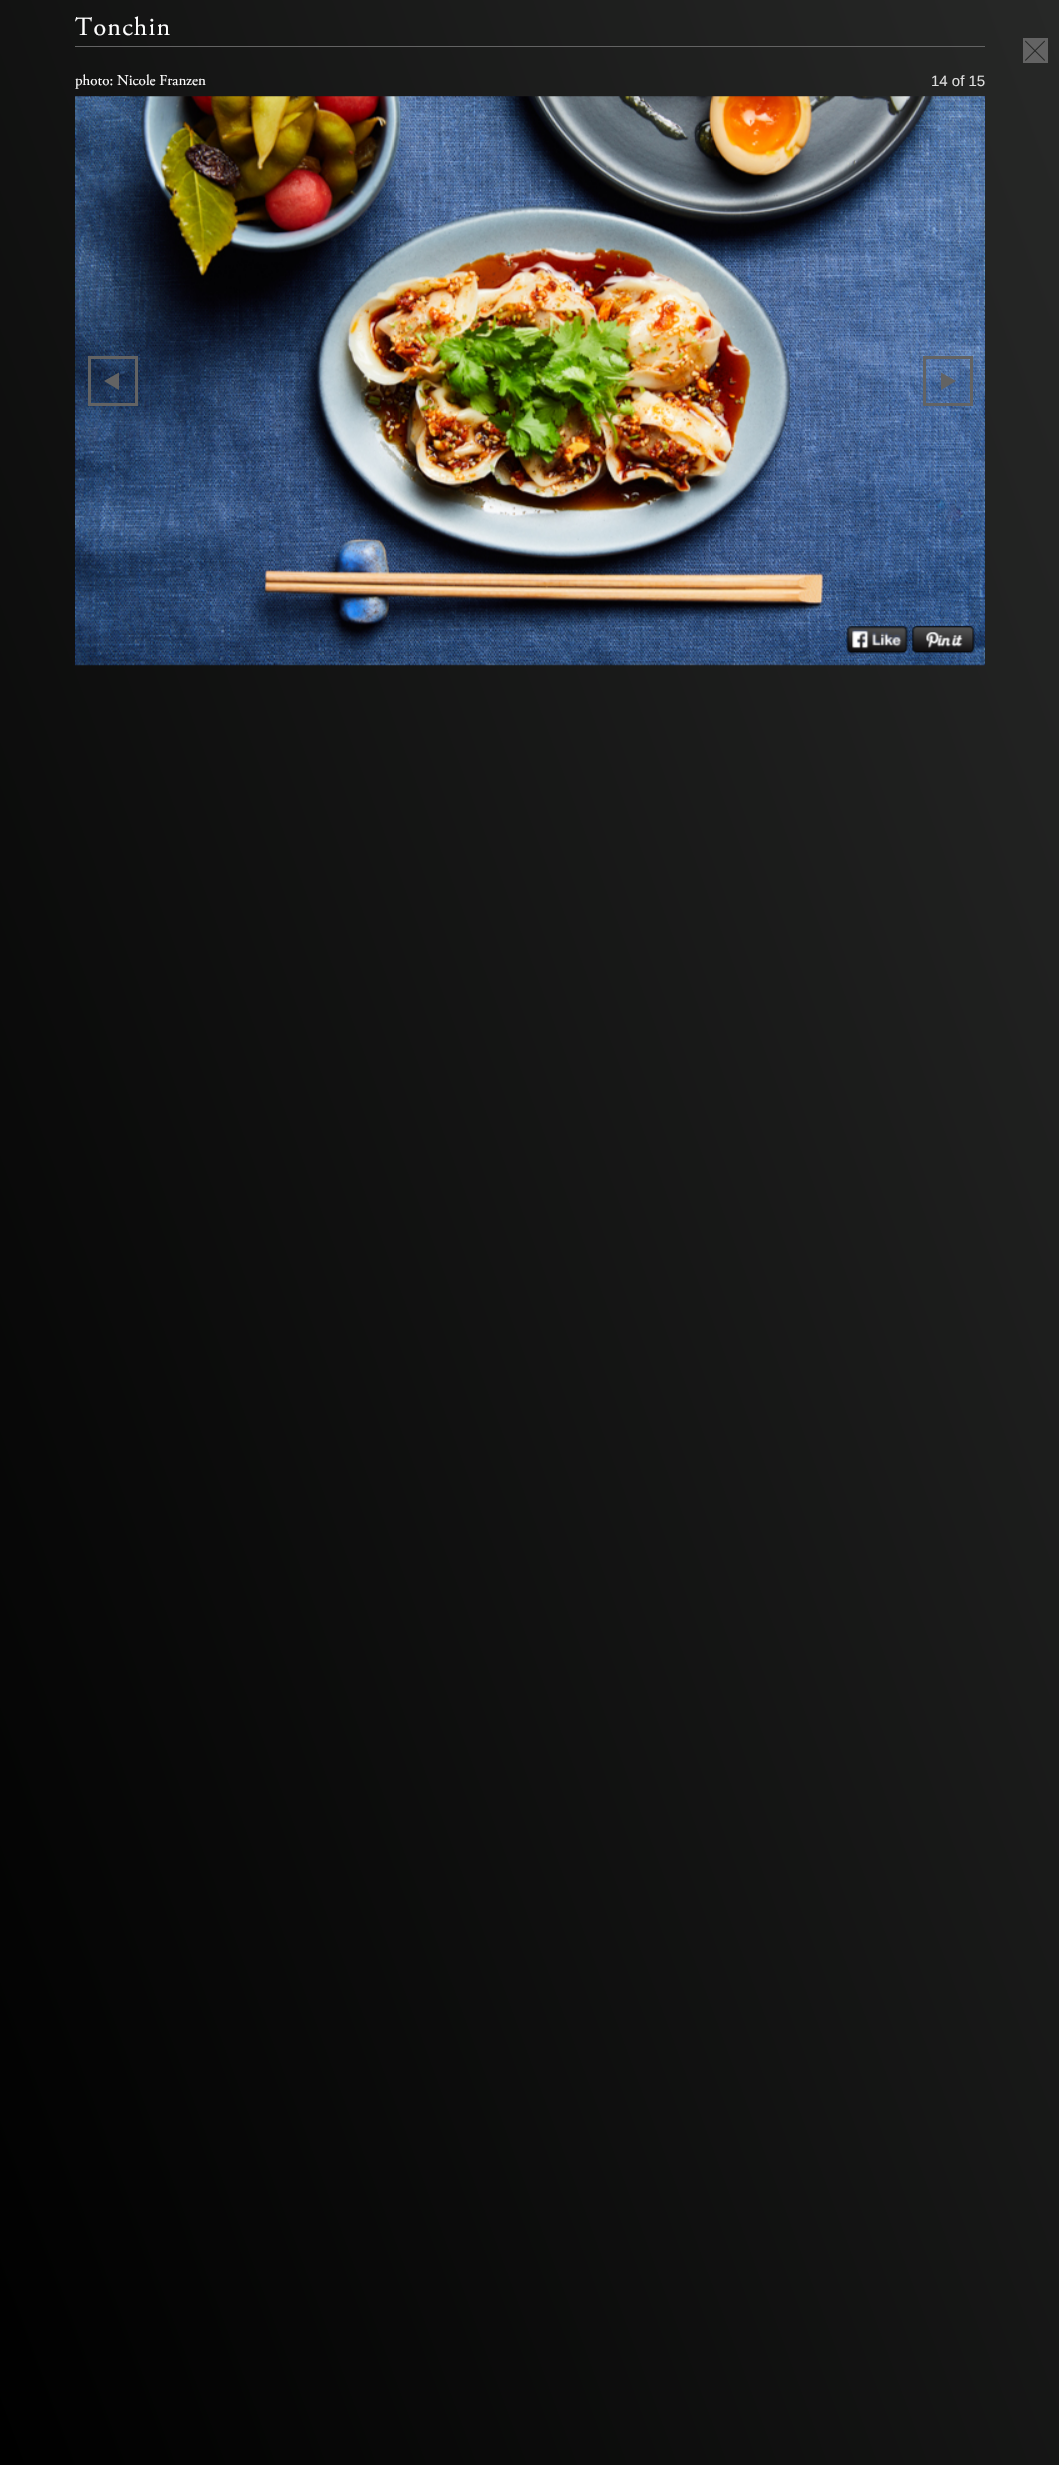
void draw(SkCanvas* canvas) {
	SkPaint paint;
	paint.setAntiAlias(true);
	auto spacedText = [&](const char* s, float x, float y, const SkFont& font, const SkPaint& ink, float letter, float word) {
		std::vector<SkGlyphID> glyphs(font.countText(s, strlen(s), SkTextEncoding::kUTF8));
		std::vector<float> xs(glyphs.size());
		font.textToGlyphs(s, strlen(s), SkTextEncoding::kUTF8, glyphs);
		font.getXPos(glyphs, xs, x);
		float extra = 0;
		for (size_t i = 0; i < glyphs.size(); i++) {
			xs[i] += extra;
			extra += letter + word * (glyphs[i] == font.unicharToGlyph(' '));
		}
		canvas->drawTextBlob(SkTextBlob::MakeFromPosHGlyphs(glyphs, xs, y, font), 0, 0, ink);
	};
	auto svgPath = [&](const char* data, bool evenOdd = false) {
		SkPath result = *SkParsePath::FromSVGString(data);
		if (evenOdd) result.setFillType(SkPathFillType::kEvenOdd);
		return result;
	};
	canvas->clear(0xffffffff);
	{
		const SkColor colors[] = {0xff272827, 0xff000000};
		const float stops[] = {0, 1};
		const SkPoint ends[] = {{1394, 918}, {-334, 1547}};
		paint.setShader(SkGradientShader::MakeLinear(ends, colors, stops, 2, SkTileMode::kClamp));
		paint.setAlpha(255);
	}
	canvas->drawRect(SkRect::MakeXYWH(0, 0, 1059, 2465), paint);
	paint.setShader(nullptr);
	paint.setColor(0xff636363);
	canvas->drawRect(SkRect::MakeXYWH(75, 46, 910, 1), paint);
	SkFont f1(fontMgr->matchFamilyStyle("Adobe Garamond", SkFontStyle::Normal()), 26);
	f1.setSubpixel(true);
	paint.setColor(0xffffffff);
	spacedText("Tonchin", 75, 35, f1, paint, 1.25, 0);
	paint.setColor(0xff636363);
	canvas->drawRect(SkRect::MakeXYWH(1023, 38, 25, 25), paint);
	paint.setColor(0xff272827);
	canvas->drawPath(svgPath("M1025.5 40.5L1045 60L1044.5 61L1025 41.5Z"), paint);
	canvas->drawPath(svgPath("M1025 60L1044.5 40.5L1045 41.5L1025.5 61Z"), paint);
	SkFont f2(fontMgr->matchFamilyStyle("Adobe Garamond", SkFontStyle::Normal()), 15);
	f2.setSubpixel(true);
	paint.setColor(0xffffffff);
	canvas->drawString("photo: Nicole Franzen", 75, 85, f2, paint);
	SkFont f3(fontMgr->matchFamilyStyle("Liberation Sans", SkFontStyle::Normal()), 15);
	f3.setSubpixel(true);
	paint.setColor(0xffdddddd);
	canvas->drawString("14 of 15", 931, 86, f3, paint);
	canvas->drawImageRect(SkImages::DeferredFromEncodedData(SkData::MakeFromFileName("img1.png")), SkRect::MakeXYWH(75, 96, 910, 570), SkSamplingOptions());
	canvas->drawImageRect(SkImages::DeferredFromEncodedData(SkData::MakeFromFileName("img2.png")), SkRect::MakeXYWH(846, 626, 63, 28), SkSamplingOptions());
	canvas->drawImageRect(SkImages::DeferredFromEncodedData(SkData::MakeFromFileName("img3.png")), SkRect::MakeXYWH(912, 626, 63, 28), SkSamplingOptions());
	paint.setStroke(true);
	paint.setStrokeWidth(3);
	paint.setColor(0xff636363);
	canvas->drawRect(SkRect::MakeXYWH(89.5, 357.5, 47, 47), paint);
	paint.setStroke(false);
	canvas->drawPath(svgPath("M119 372.5V390L104 381Z"), paint);
	paint.setStroke(true);
	canvas->drawRect(SkRect::MakeXYWH(924.5, 357.5, 47, 47), paint);
	paint.setStroke(false);
	canvas->drawPath(svgPath("M941 390V372.5L956 381Z"), paint);
}
